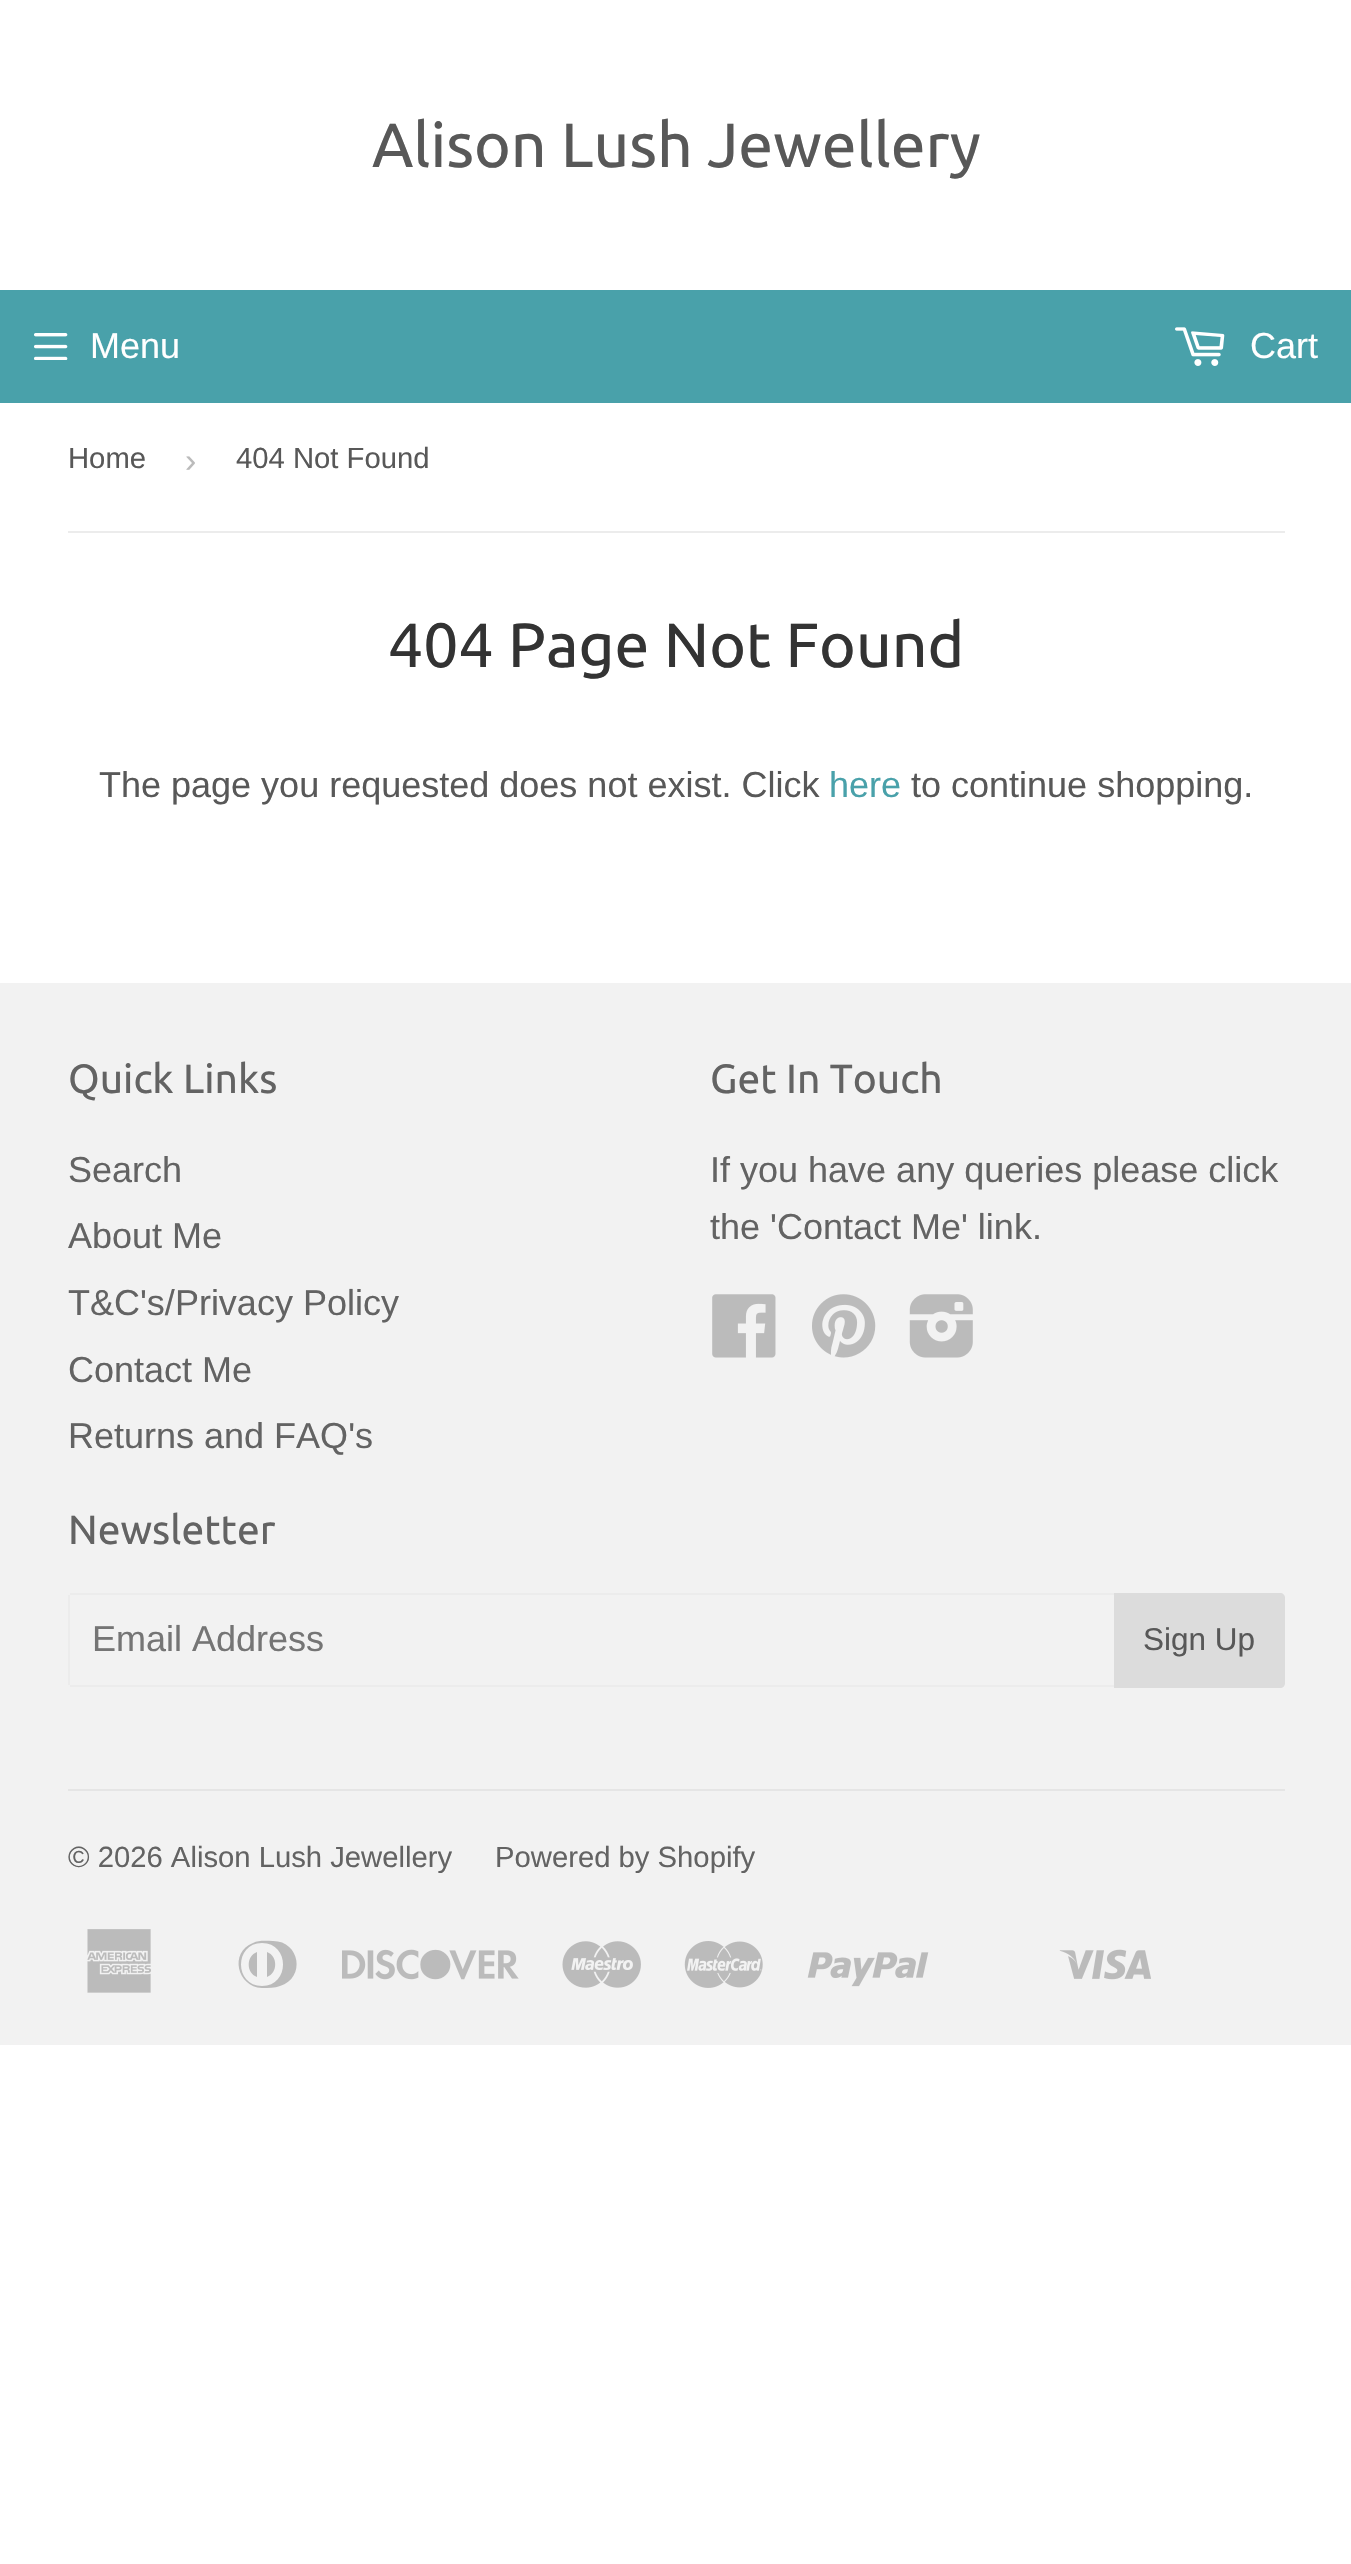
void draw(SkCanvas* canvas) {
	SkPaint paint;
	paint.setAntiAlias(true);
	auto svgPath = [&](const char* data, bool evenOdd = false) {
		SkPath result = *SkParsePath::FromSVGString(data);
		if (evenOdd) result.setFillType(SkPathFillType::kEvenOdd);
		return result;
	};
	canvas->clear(0xffffffff);
	SkFont f1(fontMgr->matchFamilyStyle("Ubuntu", SkFontStyle::Normal()), 62.4);
	f1.setSubpixel(true);
	paint.setColor(0xff585858);
	canvas->drawString("Alison Lush Jewellery", 372, 167, f1, paint);
	paint.setColor(0xff49a1aa);
	canvas->drawRect(SkRect::MakeXYWH(0, 290, 1351, 113), paint);
	canvas->drawImageRect(SkImages::DeferredFromEncodedData(SkData::MakeFromFileName("img1.png")), SkRect::MakeXYWH(34, 333, 34, 27), SkSamplingOptions());
	SkFont f2(fontMgr->matchFamilyStyle("Liberation Sans", SkFontStyle::Normal()), 36);
	f2.setSubpixel(true);
	paint.setColor(0xffffffff);
	canvas->drawString("Menu", 90, 358, f2, paint);
	canvas->drawImageRect(SkImages::DeferredFromEncodedData(SkData::MakeFromFileName("img2.png")), SkRect::MakeXYWH(1175, 327, 50, 39), SkSamplingOptions());
	canvas->drawString("Cart", 1250, 358, f2, paint);
	paint.setColor(0xffececec);
	canvas->drawRect(SkRect::MakeXYWH(68, 531, 1217, 2), paint);
	SkFont f3(fontMgr->matchFamilyStyle("Liberation Sans", SkFontStyle::Normal()), 29.25);
	f3.setSubpixel(true);
	paint.setColor(0xff585858);
	canvas->drawString("Home", 68, 468, f3, paint);
	SkFont f4(fontMgr->matchFamilyStyle("Liberation Sans", SkFontStyle::Normal()), 34);
	f4.setSubpixel(true);
	paint.setColor(0xffbbbbbb);
	canvas->drawString("›", 185, 472, f4, paint);
	paint.setColor(0xff585858);
	canvas->drawString("404 Not Found", 236, 468, f3, paint);
	paint.setColor(0xff333333);
	canvas->drawString("404 Page Not Found", 388, 667, f1, paint);
	paint.setColor(0xff585858);
	canvas->drawString("The page you requested does not exist. Click", 99, 797, f2, paint);
	paint.setColor(0xff49a1aa);
	canvas->drawString("here", 829, 797, f2, paint);
	paint.setColor(0xff585858);
	canvas->drawString("to continue shopping.", 911, 797, f2, paint);
	paint.setColor(0xfff2f2f2);
	canvas->drawRect(SkRect::MakeXYWH(0, 983, 1351, 1062), paint);
	SkFont f5(fontMgr->matchFamilyStyle("Ubuntu", SkFontStyle::Normal()), 40.75);
	f5.setSubpixel(true);
	paint.setColor(0xff636363);
	canvas->drawString("Quick Links", 68, 1093, f5, paint);
	canvas->drawString("Search", 68, 1182, f2, paint);
	canvas->drawString("About Me", 68, 1248, f2, paint);
	canvas->drawString("T&C's/Privacy Policy", 68, 1315, f2, paint);
	canvas->drawString("Contact Me", 68, 1382, f2, paint);
	canvas->drawString("Returns and FAQ's", 68, 1448, f2, paint);
	canvas->drawString("Get In Touch", 710, 1093, f5, paint);
	canvas->drawString("If you have any queries please click", 710, 1182, f2, paint);
	canvas->drawString("the 'Contact Me' link.", 710, 1239, f2, paint);
	canvas->drawImageRect(SkImages::DeferredFromEncodedData(SkData::MakeFromFileName("img3.png")), SkRect::MakeXYWH(712, 1294, 64, 64), SkSamplingOptions());
	canvas->drawImageRect(SkImages::DeferredFromEncodedData(SkData::MakeFromFileName("img4.png")), SkRect::MakeXYWH(812, 1294, 64, 64), SkSamplingOptions());
	canvas->drawImageRect(SkImages::DeferredFromEncodedData(SkData::MakeFromFileName("img5.png")), SkRect::MakeXYWH(909, 1294, 64, 64), SkSamplingOptions());
	canvas->drawString("Newsletter", 68, 1544, f5, paint);
	paint.setColor(0xffececec);
	canvas->drawRect(SkRect::MakeXYWH(70, 1593, 1044, 2), paint);
	canvas->drawRect(SkRect::MakeXYWH(70, 1685, 1044, 2), paint);
	canvas->drawRect(SkRect::MakeXYWH(68, 1595, 2, 90), paint);
	paint.setColor(0xff757575);
	canvas->drawString("Email Address", 92, 1651, f2, paint);
	paint.setColor(0xffdcdcdc);
	canvas->drawPath(svgPath("M1114 1593H1280C1283 1593 1285 1595 1285 1598V1683C1285 1686 1283 1688 1280 1688H1114Z"), paint);
	SkFont f6(fontMgr->matchFamilyStyle("Liberation Sans", SkFontStyle::Normal()), 31.5);
	f6.setSubpixel(true);
	paint.setColor(0xff585858);
	canvas->drawString("Sign Up", 1143, 1650, f6, paint);
	paint.setColor(0xffe5e5e5);
	canvas->drawRect(SkRect::MakeXYWH(68, 1789, 1217, 2), paint);
	paint.setColor(0xff636363);
	canvas->drawString("© 2026 Alison Lush Jewellery", 68, 1867, f3, paint);
	canvas->drawString("Powered by Shopify", 495, 1867, f3, paint);
	canvas->drawImageRect(SkImages::DeferredFromEncodedData(SkData::MakeFromFileName("img6.png")), SkRect::MakeXYWH(87, 1929, 64, 64), SkSamplingOptions());
	paint.setColor(0xffbbbbbb);
	canvas->drawPath(svgPath("M273 1941C300 1941 306 1978 280 1986C275 1988 268 1988 262 1988C237 1987 229 1952 253 1943C259 1940 266 1941 273 1941ZM262 1986C290 1986 290 1943 262 1943C234 1943 234 1986 262 1986ZM257 1977C246 1973 246 1956 257 1952ZM267 1952C278 1956 278 1973 267 1977Z"), paint);
	canvas->drawImageRect(SkImages::DeferredFromEncodedData(SkData::MakeFromFileName("img7.png")), SkRect::MakeXYWH(342, 1949, 177, 31), SkSamplingOptions());
	canvas->drawImageRect(SkImages::DeferredFromEncodedData(SkData::MakeFromFileName("img8.png")), SkRect::MakeXYWH(562, 1941, 79, 47), SkSamplingOptions());
	canvas->drawImageRect(SkImages::DeferredFromEncodedData(SkData::MakeFromFileName("img9.png")), SkRect::MakeXYWH(684, 1941, 79, 47), SkSamplingOptions());
	canvas->drawImageRect(SkImages::DeferredFromEncodedData(SkData::MakeFromFileName("img10.png")), SkRect::MakeXYWH(807, 1952, 122, 35), SkSamplingOptions());
	canvas->drawImageRect(SkImages::DeferredFromEncodedData(SkData::MakeFromFileName("img11.png")), SkRect::MakeXYWH(1059, 1949, 92, 31), SkSamplingOptions());
}
